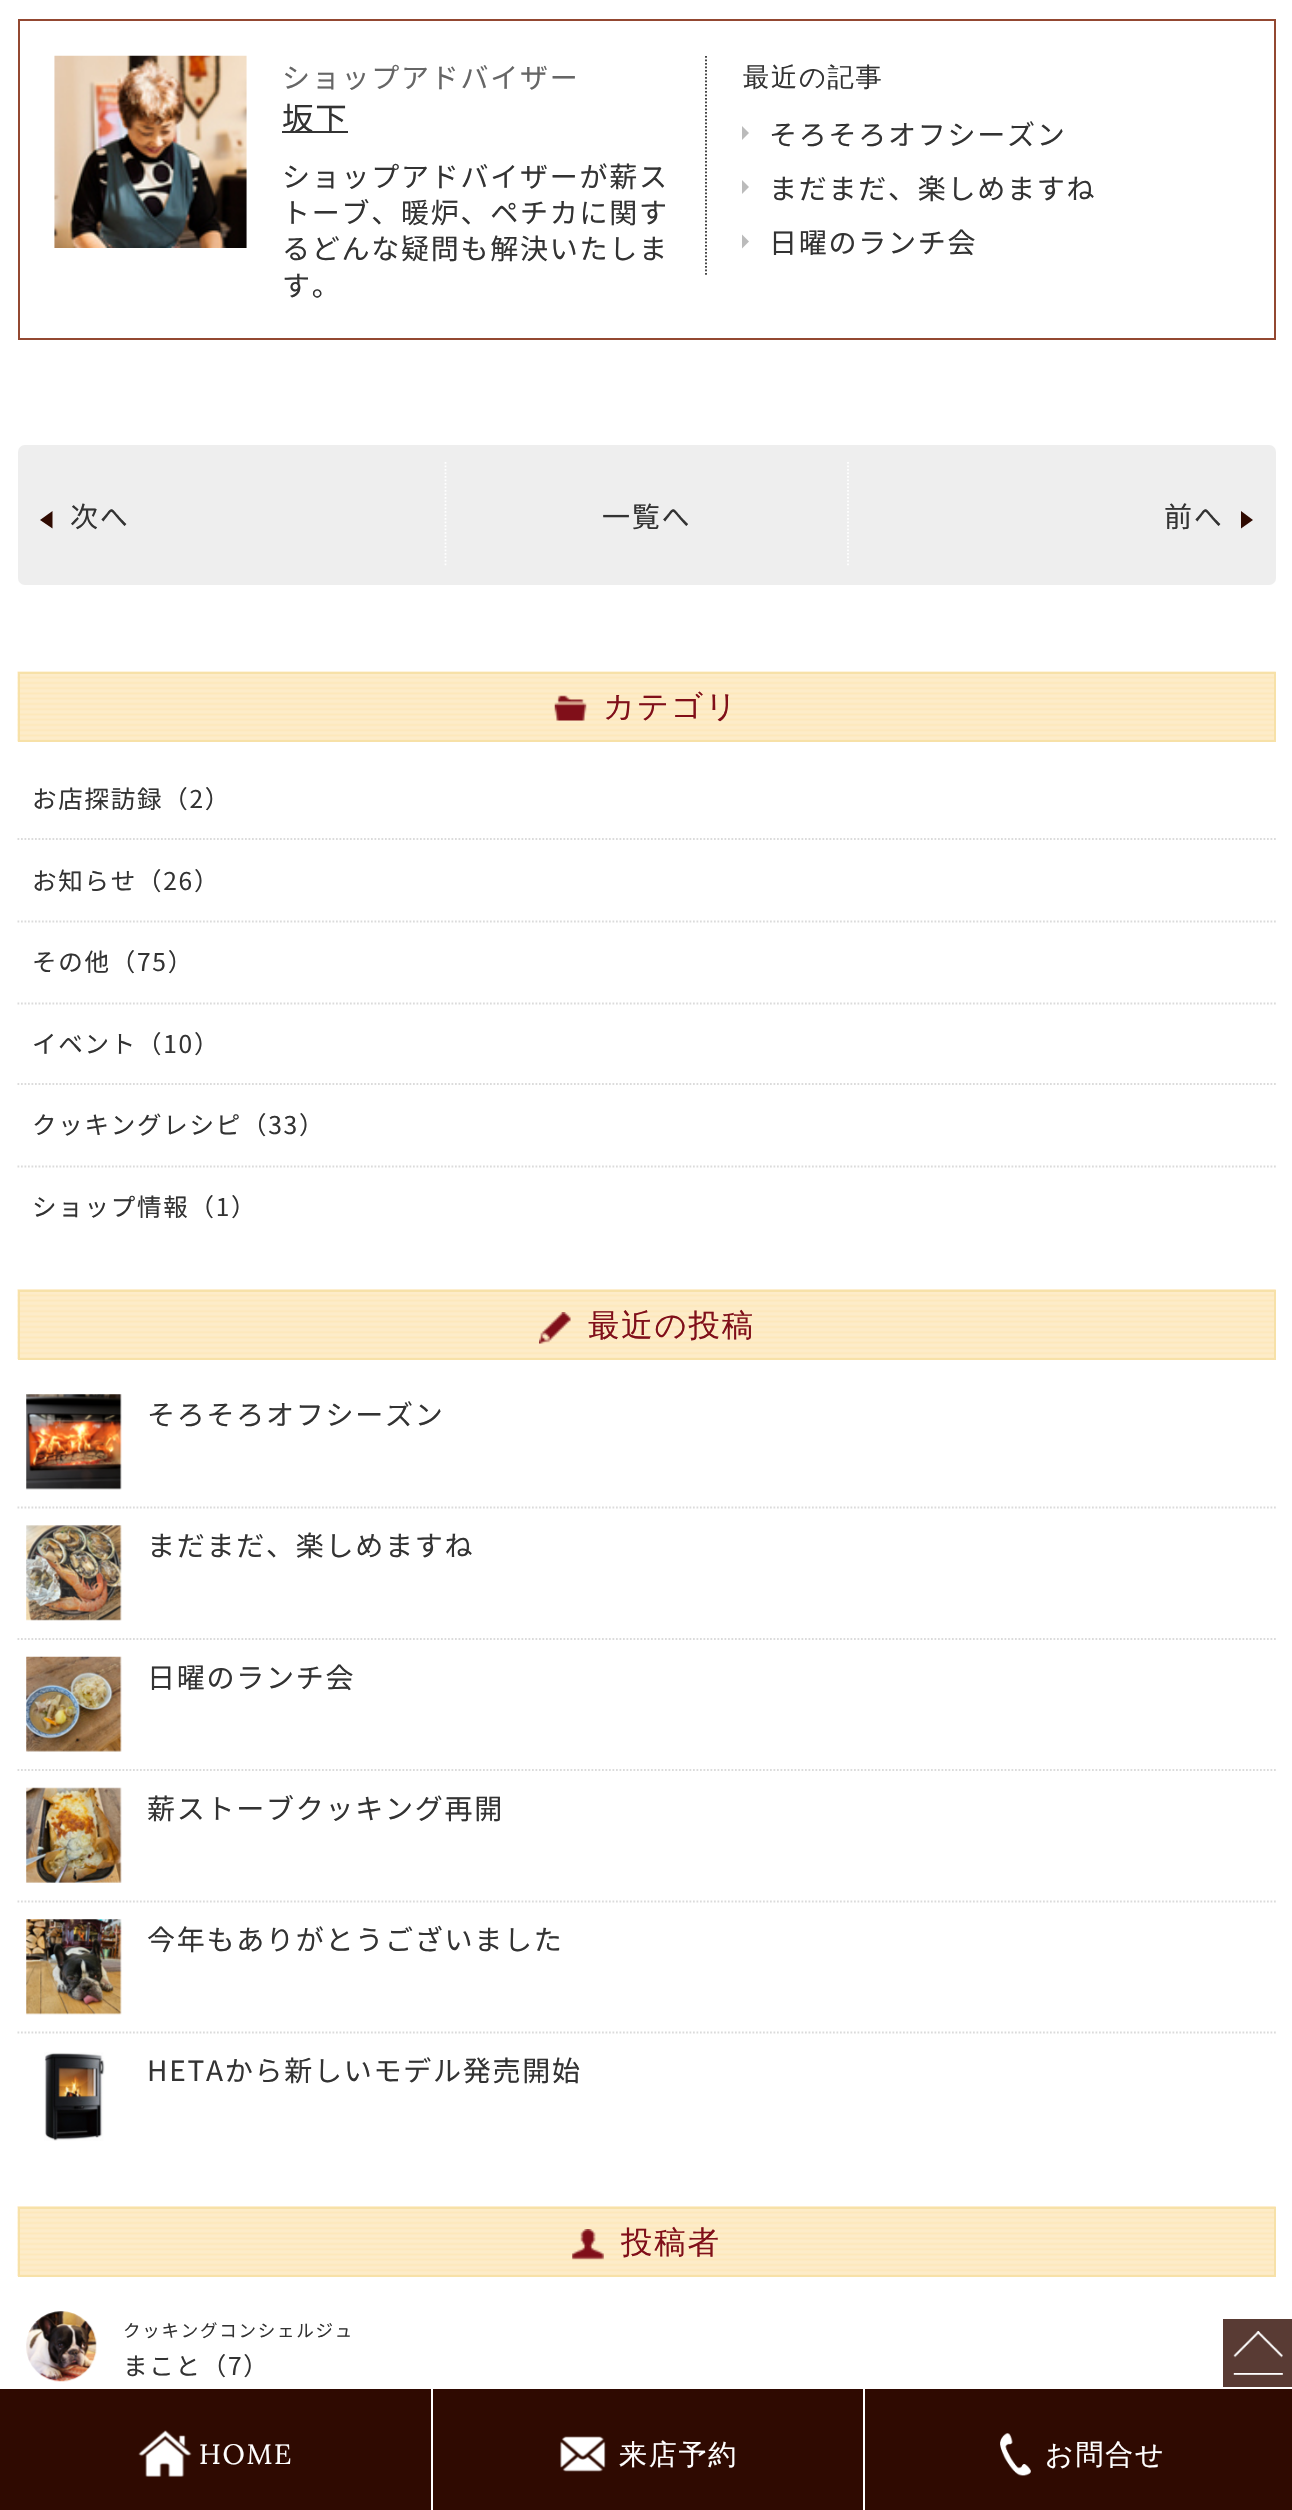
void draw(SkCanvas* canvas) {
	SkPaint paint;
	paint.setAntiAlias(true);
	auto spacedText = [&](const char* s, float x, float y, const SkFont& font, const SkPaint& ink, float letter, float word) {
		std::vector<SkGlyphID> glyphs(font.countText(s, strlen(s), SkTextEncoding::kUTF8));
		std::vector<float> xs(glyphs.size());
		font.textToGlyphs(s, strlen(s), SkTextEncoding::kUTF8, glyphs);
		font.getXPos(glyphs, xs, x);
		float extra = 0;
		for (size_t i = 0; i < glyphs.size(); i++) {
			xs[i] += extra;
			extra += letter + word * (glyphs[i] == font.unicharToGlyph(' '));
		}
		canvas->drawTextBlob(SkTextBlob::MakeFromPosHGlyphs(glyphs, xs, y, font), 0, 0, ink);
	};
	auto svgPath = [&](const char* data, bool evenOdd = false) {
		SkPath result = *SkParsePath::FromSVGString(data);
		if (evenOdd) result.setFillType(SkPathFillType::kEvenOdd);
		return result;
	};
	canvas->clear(0xffffffff);
	paint.setStroke(true);
	paint.setStrokeWidth(2);
	paint.setColor(0xff934831);
	canvas->drawRect(SkRect::MakeXYWH(19, 20, 1256, 319), paint);
	canvas->drawImageRect(SkImages::DeferredFromEncodedData(SkData::MakeFromFileName("img1.png")), SkRect::MakeXYWH(54, 55, 193, 193), SkSamplingOptions());
	SkFont f1(fontMgr->matchFamilyStyle("Noto Sans JP", SkFontStyle::Normal()), 28);
	f1.setSubpixel(true);
	paint.setStroke(false);
	paint.setColor(0xff666666);
	spacedText("ショップアドバイザー", 282, 88, f1, paint, 1.75, 0);
	paint.setColor(0xff333333);
	canvas->drawRect(SkRect::MakeXYWH(282, 131, 66, 2), paint);
	SkFont f2(fontMgr->matchFamilyStyle("Noto Sans JP", SkFontStyle::Normal()), 31.5);
	f2.setSubpixel(true);
	spacedText("坂下", 282, 130, f2, paint, 1.75, 0);
	spacedText("ショップアドバイザーが薪ス", 282, 187, f1, paint, 1.75, 0);
	spacedText("トーブ、暖炉、ペチカに関す", 282, 223, f1, paint, 1.75, 0);
	spacedText("るどんな疑問も解決いたしま", 282, 259, f1, paint, 1.75, 0);
	spacedText("す。", 282, 296, f1, paint, 1.75, 0);
	paint.setStroke(true);
	paint.setStrokeWidth(1.8);
	paint.setPathEffect(SkDashPathEffect::Make({{1.75f, 1.75f}}, 0));
	canvas->drawPath(svgPath("M706 56V276.5"), paint);
	paint.setPathEffect(nullptr);
	SkFont f3(fontMgr->matchFamilyStyle("WenQuanYi Zen Hei", SkFontStyle(500, SkFontStyle::kNormal_Width, SkFontStyle::kUpright_Slant)), 26.25);
	f3.setSubpixel(true);
	paint.setStroke(false);
	spacedText("最近の記事", 743, 86, f3, paint, 1.75, 0);
	paint.setColor(0xffbbbbbb);
	canvas->drawPath(svgPath("M742 140V126L749 133Z"), paint);
	paint.setColor(0xff333333);
	spacedText("そろそろオフシーズン", 769, 145, f1, paint, 1.75, 0);
	paint.setColor(0xffbbbbbb);
	canvas->drawPath(svgPath("M742 194V180L749 187Z"), paint);
	paint.setColor(0xff333333);
	spacedText("まだまだ、楽しめますね", 769, 199, f1, paint, 1.75, 0);
	paint.setColor(0xffbbbbbb);
	canvas->drawPath(svgPath("M742 248.5V234.5L749 241.5Z"), paint);
	paint.setColor(0xff333333);
	spacedText("日曜のランチ会", 769, 253, f1, paint, 1.75, 0);
	paint.setColor(0xffeeeeee);
	canvas->drawRoundRect(SkRect::MakeXYWH(18, 445, 1258, 140), 7, 7, paint);
	paint.setStroke(true);
	paint.setColor(0xffffffff);
	paint.setPathEffect(SkDashPathEffect::Make({{1.75f, 1.75f}}, 0));
	canvas->drawPath(svgPath("M445.5 462V567"), paint);
	paint.setPathEffect(nullptr);
	paint.setStroke(false);
	paint.setColor(0xff2f0a01);
	canvas->drawPath(svgPath("M52.5 511V528.5L40 520Z"), paint);
	paint.setColor(0xff333333);
	spacedText("次へ", 70, 527, f1, paint, 1.75, 0);
	spacedText("一覧へ", 602, 527, f1, paint, 1.75, 0);
	paint.setStroke(true);
	paint.setColor(0xffffffff);
	paint.setPathEffect(SkDashPathEffect::Make({{1.75f, 1.75f}}, 0));
	canvas->drawPath(svgPath("M848 462V567"), paint);
	paint.setPathEffect(nullptr);
	paint.setStroke(false);
	paint.setColor(0xff333333);
	spacedText("前へ", 1164, 527, f1, paint, 1.75, 0);
	paint.setColor(0xff2f0a01);
	canvas->drawPath(svgPath("M1241 528.5V511L1253 520Z"), paint);
	canvas->drawImageRect(SkImages::DeferredFromEncodedData(SkData::MakeFromFileName("img2.png")), SkRect::MakeXYWH(17, 671, 1259, 71), SkSamplingOptions());
	paint.setStroke(true);
	paint.setStrokeWidth(2);
	paint.setColor(0xfff7e1a8);
	canvas->drawRect(SkRect::MakeXYWH(19, 673, 1256, 68), paint);
	canvas->drawImageRect(SkImages::DeferredFromEncodedData(SkData::MakeFromFileName("img3.png")), SkRect::MakeXYWH(554, 695, 33, 26), SkSamplingOptions());
	SkFont f4(fontMgr->matchFamilyStyle("WenQuanYi Zen Hei", SkFontStyle(500, SkFontStyle::kNormal_Width, SkFontStyle::kUpright_Slant)), 31.5);
	f4.setSubpixel(true);
	paint.setStroke(false);
	paint.setColor(0xff800f19);
	spacedText("カテゴリ", 603, 717, f4, paint, 1.75, 0);
	paint.setStroke(true);
	paint.setStrokeWidth(1.8);
	paint.setColor(0xffdbdbdb);
	paint.setPathEffect(SkDashPathEffect::Make({{1.75f, 1.75f}}, 0));
	canvas->drawPath(svgPath("M17.5 839H1276"), paint);
	paint.setPathEffect(nullptr);
	SkFont f5(fontMgr->matchFamilyStyle("Noto Sans JP", SkFontStyle::Normal()), 24.5);
	f5.setSubpixel(true);
	paint.setStroke(false);
	paint.setColor(0xff333333);
	spacedText("お店探訪録（2）", 32, 808, f5, paint, 1.75, 0);
	paint.setStroke(true);
	paint.setColor(0xffdbdbdb);
	paint.setPathEffect(SkDashPathEffect::Make({{1.75f, 1.75f}}, 0));
	canvas->drawPath(svgPath("M17.5 921.5H1276"), paint);
	paint.setPathEffect(nullptr);
	paint.setStroke(false);
	paint.setColor(0xff333333);
	spacedText("お知らせ（26）", 32, 890, f5, paint, 1.75, 0);
	paint.setStroke(true);
	paint.setColor(0xffdbdbdb);
	paint.setPathEffect(SkDashPathEffect::Make({{1.75f, 1.75f}}, 0));
	canvas->drawPath(svgPath("M17.5 1003.5H1276"), paint);
	paint.setPathEffect(nullptr);
	paint.setStroke(false);
	paint.setColor(0xff333333);
	spacedText("その他（75）", 32, 971, f5, paint, 1.75, 0);
	paint.setStroke(true);
	paint.setColor(0xffdbdbdb);
	paint.setPathEffect(SkDashPathEffect::Make({{1.75f, 1.75f}}, 0));
	canvas->drawPath(svgPath("M17.5 1084H1276"), paint);
	paint.setPathEffect(nullptr);
	paint.setStroke(false);
	paint.setColor(0xff333333);
	spacedText("イベント（10）", 32, 1053, f5, paint, 1.75, 0);
	paint.setStroke(true);
	paint.setColor(0xffdbdbdb);
	paint.setPathEffect(SkDashPathEffect::Make({{1.75f, 1.75f}}, 0));
	canvas->drawPath(svgPath("M17.5 1166.5H1276"), paint);
	paint.setPathEffect(nullptr);
	paint.setStroke(false);
	paint.setColor(0xff333333);
	spacedText("クッキングレシピ（33）", 32, 1134, f5, paint, 1.75, 0);
	spacedText("ショップ情報（1）", 32, 1216, f5, paint, 1.75, 0);
	canvas->drawImageRect(SkImages::DeferredFromEncodedData(SkData::MakeFromFileName("img4.png")), SkRect::MakeXYWH(17, 1289, 1259, 71), SkSamplingOptions());
	paint.setStroke(true);
	paint.setStrokeWidth(2);
	paint.setColor(0xfff7e1a8);
	canvas->drawRect(SkRect::MakeXYWH(19, 1291, 1256, 68), paint);
	canvas->drawImageRect(SkImages::DeferredFromEncodedData(SkData::MakeFromFileName("img5.png")), SkRect::MakeXYWH(539, 1312, 32, 32), SkSamplingOptions());
	paint.setStroke(false);
	paint.setColor(0xff800f19);
	spacedText("最近の投稿", 588, 1336, f4, paint, 1.75, 0);
	paint.setStroke(true);
	paint.setStrokeWidth(1.8);
	paint.setColor(0xffdbdbdb);
	paint.setPathEffect(SkDashPathEffect::Make({{1.75f, 1.75f}}, 0));
	canvas->drawPath(svgPath("M17.5 1507.5H1276"), paint);
	paint.setPathEffect(nullptr);
	canvas->drawImageRect(SkImages::DeferredFromEncodedData(SkData::MakeFromFileName("img6.png")), SkRect::MakeXYWH(26, 1394, 96, 96), SkSamplingOptions());
	paint.setStroke(false);
	paint.setColor(0xff333333);
	spacedText("そろそろオフシーズン", 147, 1425, f1, paint, 1.75, 0);
	paint.setStroke(true);
	paint.setColor(0xffdbdbdb);
	paint.setPathEffect(SkDashPathEffect::Make({{1.75f, 1.75f}}, 0));
	canvas->drawPath(svgPath("M17.5 1639H1276"), paint);
	paint.setPathEffect(nullptr);
	canvas->drawImageRect(SkImages::DeferredFromEncodedData(SkData::MakeFromFileName("img7.png")), SkRect::MakeXYWH(26, 1525, 96, 96), SkSamplingOptions());
	paint.setStroke(false);
	paint.setColor(0xff333333);
	spacedText("まだまだ、楽しめますね", 147, 1556, f1, paint, 1.75, 0);
	paint.setStroke(true);
	paint.setColor(0xffdbdbdb);
	paint.setPathEffect(SkDashPathEffect::Make({{1.75f, 1.75f}}, 0));
	canvas->drawPath(svgPath("M17.5 1770H1276"), paint);
	paint.setPathEffect(nullptr);
	canvas->drawImageRect(SkImages::DeferredFromEncodedData(SkData::MakeFromFileName("img8.png")), SkRect::MakeXYWH(26, 1656, 96, 96), SkSamplingOptions());
	paint.setStroke(false);
	paint.setColor(0xff333333);
	spacedText("日曜のランチ会", 147, 1688, f1, paint, 1.75, 0);
	paint.setStroke(true);
	paint.setColor(0xffdbdbdb);
	paint.setPathEffect(SkDashPathEffect::Make({{1.75f, 1.75f}}, 0));
	canvas->drawPath(svgPath("M17.5 1901.5H1276"), paint);
	paint.setPathEffect(nullptr);
	canvas->drawImageRect(SkImages::DeferredFromEncodedData(SkData::MakeFromFileName("img9.png")), SkRect::MakeXYWH(26, 1787, 96, 96), SkSamplingOptions());
	paint.setStroke(false);
	paint.setColor(0xff333333);
	spacedText("薪ストーブクッキング再開", 147, 1819, f1, paint, 1.75, 0);
	paint.setStroke(true);
	paint.setColor(0xffdbdbdb);
	paint.setPathEffect(SkDashPathEffect::Make({{1.75f, 1.75f}}, 0));
	canvas->drawPath(svgPath("M17.5 2032.5H1276"), paint);
	paint.setPathEffect(nullptr);
	canvas->drawImageRect(SkImages::DeferredFromEncodedData(SkData::MakeFromFileName("img10.png")), SkRect::MakeXYWH(26, 1919, 96, 96), SkSamplingOptions());
	paint.setStroke(false);
	paint.setColor(0xff333333);
	spacedText("今年もありがとうございました", 147, 1950, f1, paint, 1.75, 0);
	canvas->drawImageRect(SkImages::DeferredFromEncodedData(SkData::MakeFromFileName("img11.png")), SkRect::MakeXYWH(44, 2052, 61, 89), SkSamplingOptions());
	spacedText("HETAから新しいモデル発売開始", 147, 2081, f1, paint, 1.75, 0);
	canvas->drawImageRect(SkImages::DeferredFromEncodedData(SkData::MakeFromFileName("img4.png")), SkRect::MakeXYWH(17, 2206, 1259, 71), SkSamplingOptions());
	paint.setStroke(true);
	paint.setStrokeWidth(2);
	paint.setColor(0xfff7e1a8);
	canvas->drawRect(SkRect::MakeXYWH(19, 2208, 1256, 68), paint);
	canvas->drawImageRect(SkImages::DeferredFromEncodedData(SkData::MakeFromFileName("img12.png")), SkRect::MakeXYWH(572, 2229, 32, 31), SkSamplingOptions());
	paint.setStroke(false);
	paint.setColor(0xff800f19);
	spacedText("投稿者", 621, 2253, f4, paint, 1.75, 0);
	canvas->drawImageRect(SkImages::DeferredFromEncodedData(SkData::MakeFromFileName("img13.png")), SkRect::MakeXYWH(26, 2311, 71, 71), SkSamplingOptions());
	SkFont f6(fontMgr->matchFamilyStyle("Noto Sans JP", SkFontStyle::Normal()), 17.5);
	f6.setSubpixel(true);
	paint.setColor(0xff333333);
	spacedText("クッキングコンシェルジュ", 123, 2337, f6, paint, 1.75, 0);
	spacedText("まこと（7）", 123, 2375, f5, paint, 1.75, 0);
	paint.setColor(0xff593b34);
	canvas->drawRect(SkRect::MakeXYWH(1223, 2319, 69, 68), paint);
	canvas->drawImageRect(SkImages::DeferredFromEncodedData(SkData::MakeFromFileName("img14.png")), SkRect::MakeXYWH(1233, 2331, 50, 44), SkSamplingOptions());
	paint.setColor(0xff2f0a01);
	canvas->drawRect(SkRect::MakeXYWH(0, 2389, 1292, 121), paint);
	canvas->drawImageRect(SkImages::DeferredFromEncodedData(SkData::MakeFromFileName("img15.png")), SkRect::MakeXYWH(138, 2430, 54, 47), SkSamplingOptions());
	SkFont f7(fontMgr->matchFamilyStyle("Lora", SkFontStyle::Normal()), 28);
	f7.setSubpixel(true);
	paint.setColor(0xffffffff);
	spacedText("HOME", 199, 2464, f7, paint, 1.75, 0);
	canvas->drawRect(SkRect::MakeXYWH(431, 2389, 2, 121), paint);
	canvas->drawImageRect(SkImages::DeferredFromEncodedData(SkData::MakeFromFileName("img16.png")), SkRect::MakeXYWH(560, 2436, 46, 36), SkSamplingOptions());
	SkFont f8(fontMgr->matchFamilyStyle("WenQuanYi Zen Hei", SkFontStyle(500, SkFontStyle::kNormal_Width, SkFontStyle::kUpright_Slant)), 28);
	f8.setSubpixel(true);
	spacedText("来店予約", 619, 2464, f8, paint, 1.75, 0);
	canvas->drawRect(SkRect::MakeXYWH(863, 2389, 2, 121), paint);
	canvas->drawImageRect(SkImages::DeferredFromEncodedData(SkData::MakeFromFileName("img17.png")), SkRect::MakeXYWH(1000, 2433, 31, 43), SkSamplingOptions());
	spacedText("お問合せ", 1045, 2464, f8, paint, 1.75, 0);
}
